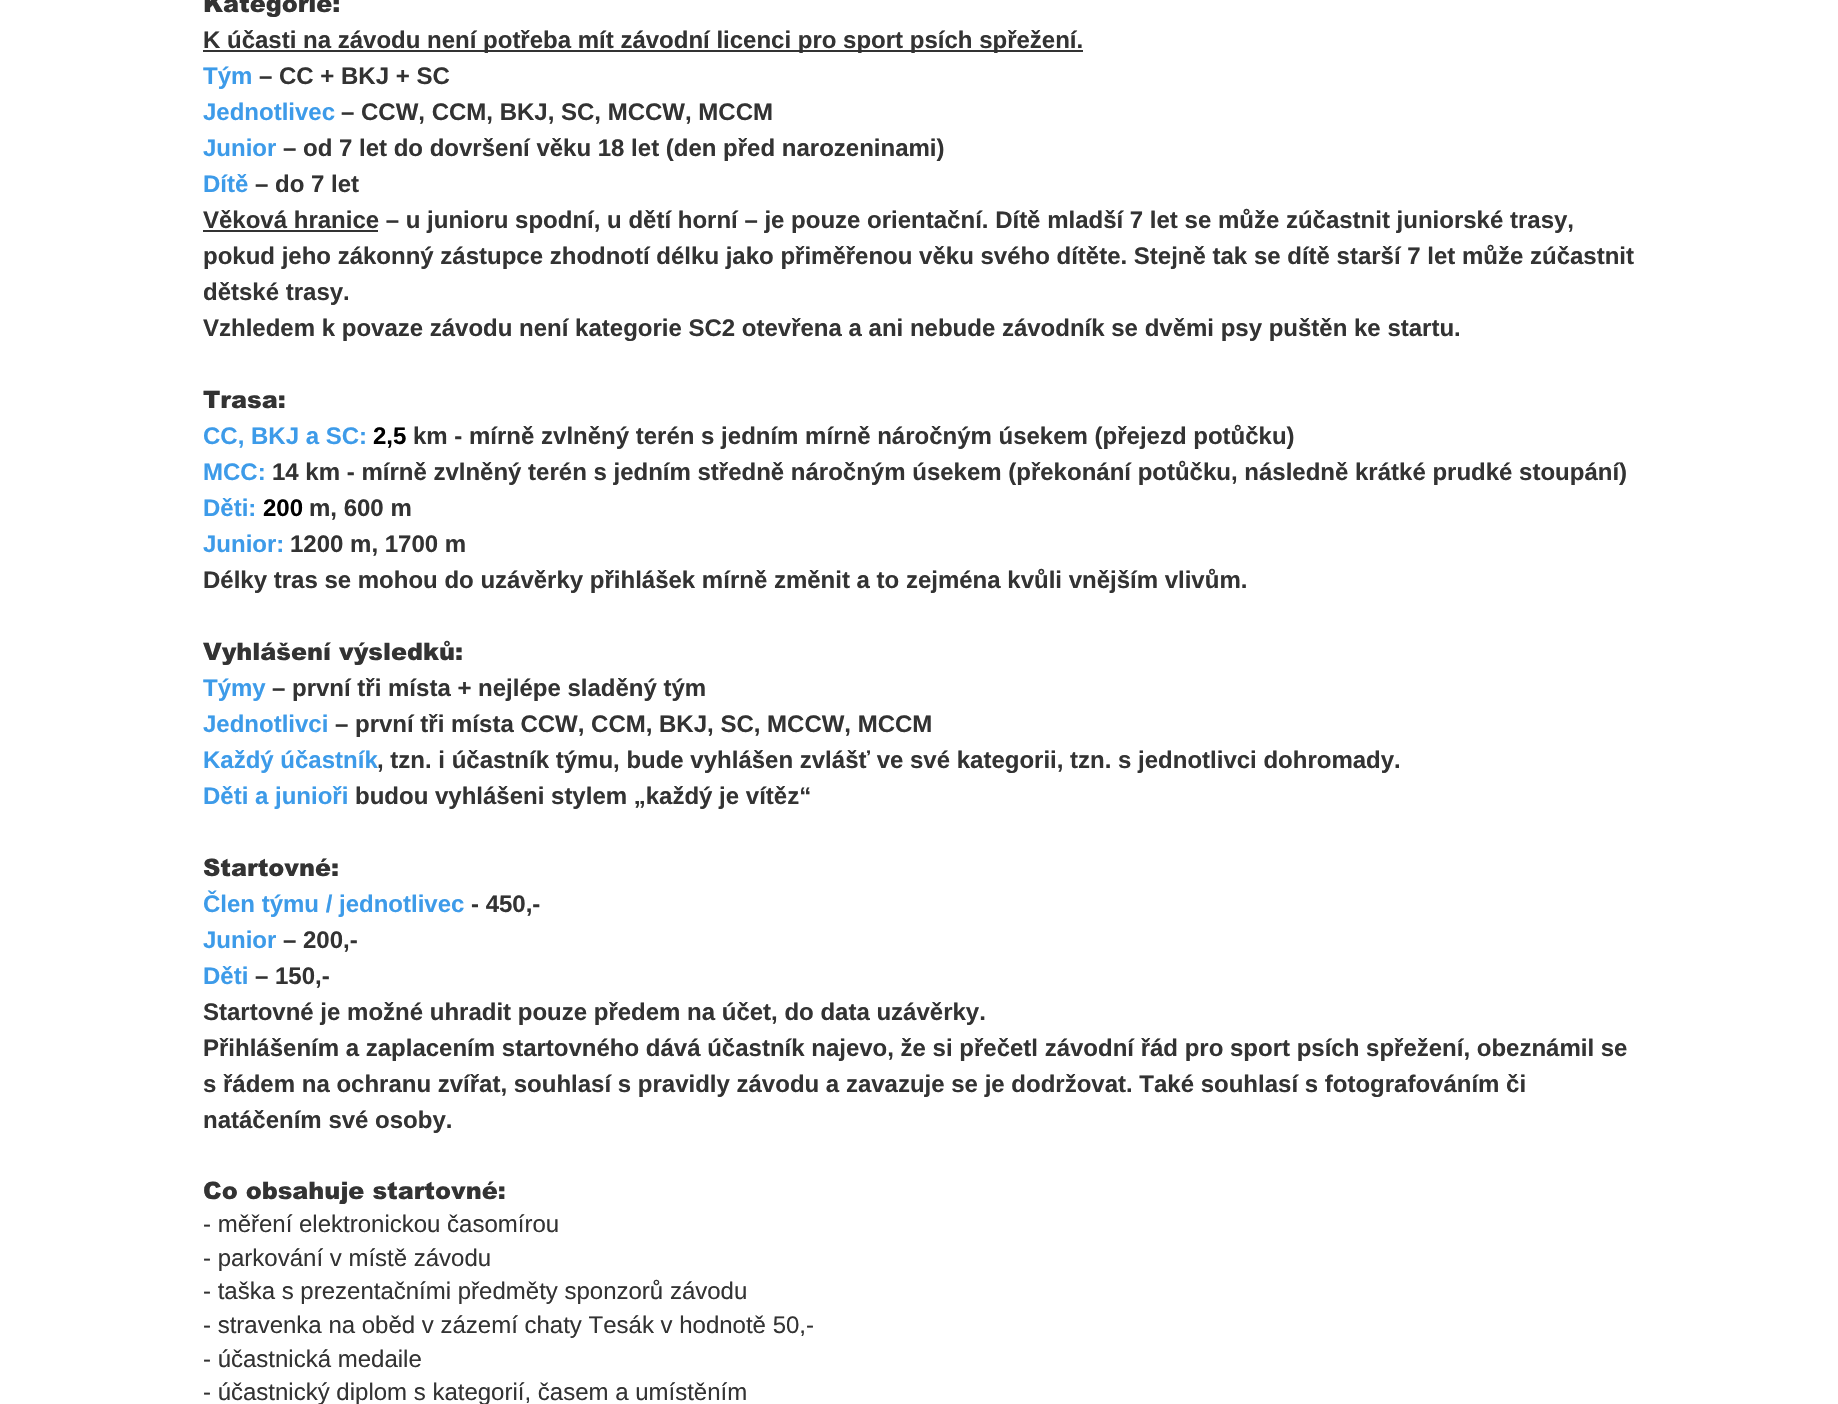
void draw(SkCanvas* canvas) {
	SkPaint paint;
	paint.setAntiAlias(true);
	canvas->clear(0xffffffff);
	SkFont f1(fontMgr->matchFamilyStyle("arial", SkFontStyle(900, SkFontStyle::kNormal_Width, SkFontStyle::kUpright_Slant)), 24);
	f1.setSubpixel(true);
	paint.setColor(0xff333333);
	canvas->drawString("Kategorie:", 203, 12, f1, paint);
	canvas->drawRect(SkRect::MakeXYWH(203, 50, 880, 2), paint);
	SkFont f2(fontMgr->matchFamilyStyle("Liberation Sans", SkFontStyle::Bold()), 24);
	f2.setSubpixel(true);
	canvas->drawString("K účasti na závodu není potřeba mít závodní licenci pro sport psích spřežení.", 203, 48, f2, paint);
	paint.setColor(0xff3d9be9);
	canvas->drawString("Tým", 203, 84, f2, paint);
	paint.setColor(0xff333333);
	canvas->drawString("– CC + BKJ + SC", 259, 84, f2, paint);
	paint.setColor(0xff3d9be9);
	canvas->drawString("Jednotlivec", 203, 120, f2, paint);
	paint.setColor(0xff333333);
	canvas->drawString("– CCW, CCM, BKJ, SC, MCCW, MCCM", 341, 120, f2, paint);
	paint.setColor(0xff3d9be9);
	canvas->drawString("Junior", 203, 156, f2, paint);
	paint.setColor(0xff333333);
	canvas->drawString("– od 7 let do dovršení věku 18 let (den před narozeninami)", 283, 156, f2, paint);
	paint.setColor(0xff3d9be9);
	canvas->drawString("Dítě", 203, 192, f2, paint);
	paint.setColor(0xff333333);
	canvas->drawString("– do 7 let", 255, 192, f2, paint);
	canvas->drawRect(SkRect::MakeXYWH(203, 230, 175, 2), paint);
	canvas->drawString("Věková hranice – u junioru spodní, u dětí horní – je pouze orientační. Dítě mladší 7 let se může zúčastnit juniorské trasy,", 203, 228, f2, paint);
	canvas->drawString("pokud jeho zákonný zástupce zhodnotí délku jako přiměřenou věku svého dítěte. Stejně tak se dítě starší 7 let může zúčastnit", 203, 264, f2, paint);
	canvas->drawString("dětské trasy.", 203, 300, f2, paint);
	canvas->drawString("Vzhledem k povaze závodu není kategorie SC2 otevřena a ani nebude závodník se dvěmi psy puštěn ke startu.", 203, 336, f2, paint);
	canvas->drawString("Trasa:", 203, 408, f1, paint);
	paint.setColor(0xff3d9be9);
	canvas->drawString("CC, BKJ a SC:", 203, 444, f2, paint);
	paint.setColor(0xff000000);
	canvas->drawString("2,5", 373, 444, f2, paint);
	paint.setColor(0xff333333);
	canvas->drawString("km - mírně zvlněný terén s jedním mírně náročným úsekem (přejezd potůčku)", 413, 444, f2, paint);
	paint.setColor(0xff3d9be9);
	canvas->drawString("MCC:", 203, 480, f2, paint);
	paint.setColor(0xff333333);
	canvas->drawString("14 km - mírně zvlněný terén s jedním středně náročným úsekem (překonání potůčku, následně krátké prudké stoupání)", 272, 480, f2, paint);
	paint.setColor(0xff3d9be9);
	canvas->drawString("Děti:", 203, 516, f2, paint);
	paint.setColor(0xff000000);
	canvas->drawString("200", 263, 516, f2, paint);
	paint.setColor(0xff333333);
	canvas->drawString("m, 600 m", 309, 516, f2, paint);
	paint.setColor(0xff3d9be9);
	canvas->drawString("Junior:", 203, 552, f2, paint);
	paint.setColor(0xff333333);
	canvas->drawString("1200 m, 1700 m", 290, 552, f2, paint);
	canvas->drawString("Délky tras se mohou do uzávěrky přihlášek mírně změnit a to zejména kvůli vnějším vlivům.", 203, 588, f2, paint);
	canvas->drawString("Vyhlášení výsledků:", 203, 660, f1, paint);
	paint.setColor(0xff3d9be9);
	canvas->drawString("Týmy", 203, 696, f2, paint);
	paint.setColor(0xff333333);
	canvas->drawString("– první tři místa + nejlépe sladěný tým", 272, 696, f2, paint);
	paint.setColor(0xff3d9be9);
	canvas->drawString("Jednotlivci", 203, 732, f2, paint);
	paint.setColor(0xff333333);
	canvas->drawString("– první tři místa CCW, CCM, BKJ, SC, MCCW, MCCM", 335, 732, f2, paint);
	paint.setColor(0xff3d9be9);
	canvas->drawString("Každý účastník", 203, 768, f2, paint);
	paint.setColor(0xff333333);
	canvas->drawString(", tzn. i účastník týmu, bude vyhlášen zvlášť ve své kategorii, tzn. s jednotlivci dohromady.", 377, 768, f2, paint);
	paint.setColor(0xff3d9be9);
	canvas->drawString("Děti a junioři", 203, 804, f2, paint);
	paint.setColor(0xff333333);
	canvas->drawString("budou vyhlášeni stylem „každý je vítěz“", 355, 804, f2, paint);
	canvas->drawString("Startovné:", 203, 876, f1, paint);
	paint.setColor(0xff3d9be9);
	canvas->drawString("Člen týmu / jednotlivec", 203, 912, f2, paint);
	paint.setColor(0xff333333);
	canvas->drawString("- 450,-", 471, 912, f2, paint);
	paint.setColor(0xff3d9be9);
	canvas->drawString("Junior", 203, 948, f2, paint);
	paint.setColor(0xff333333);
	canvas->drawString("– 200,-", 283, 948, f2, paint);
	paint.setColor(0xff3d9be9);
	canvas->drawString("Děti", 203, 984, f2, paint);
	paint.setColor(0xff333333);
	canvas->drawString("– 150,-", 255, 984, f2, paint);
	canvas->drawString("Startovné je možné uhradit pouze předem na účet, do data uzávěrky.", 203, 1020, f2, paint);
	canvas->drawString("Přihlášením a zaplacením startovného dává účastník najevo, že si přečetl závodní řád pro sport psích spřežení, obeznámil se", 203, 1056, f2, paint);
	canvas->drawString("s řádem na ochranu zvířat, souhlasí s pravidly závodu a zavazuje se je dodržovat. Také souhlasí s fotografováním či", 203, 1092, f2, paint);
	canvas->drawString("natáčením své osoby.", 203, 1128, f2, paint);
	canvas->drawString("Co obsahuje startovné:", 203, 1199, f1, paint);
	SkFont f3(fontMgr->matchFamilyStyle("Liberation Sans", SkFontStyle::Normal()), 24);
	f3.setSubpixel(true);
	canvas->drawString("- měření elektronickou časomírou", 203, 1232, f3, paint);
	canvas->drawString("- parkování v místě závodu", 203, 1266, f3, paint);
	canvas->drawString("- taška s prezentačními předměty sponzorů závodu", 203, 1299, f3, paint);
	canvas->drawString("- stravenka na oběd v zázemí chaty Tesák v hodnotě 50,-", 203, 1333, f3, paint);
	canvas->drawString("- účastnická medaile", 203, 1367, f3, paint);
	canvas->drawString("- účastnický diplom s kategorií, časem a umístěním", 203, 1400, f3, paint);
}
